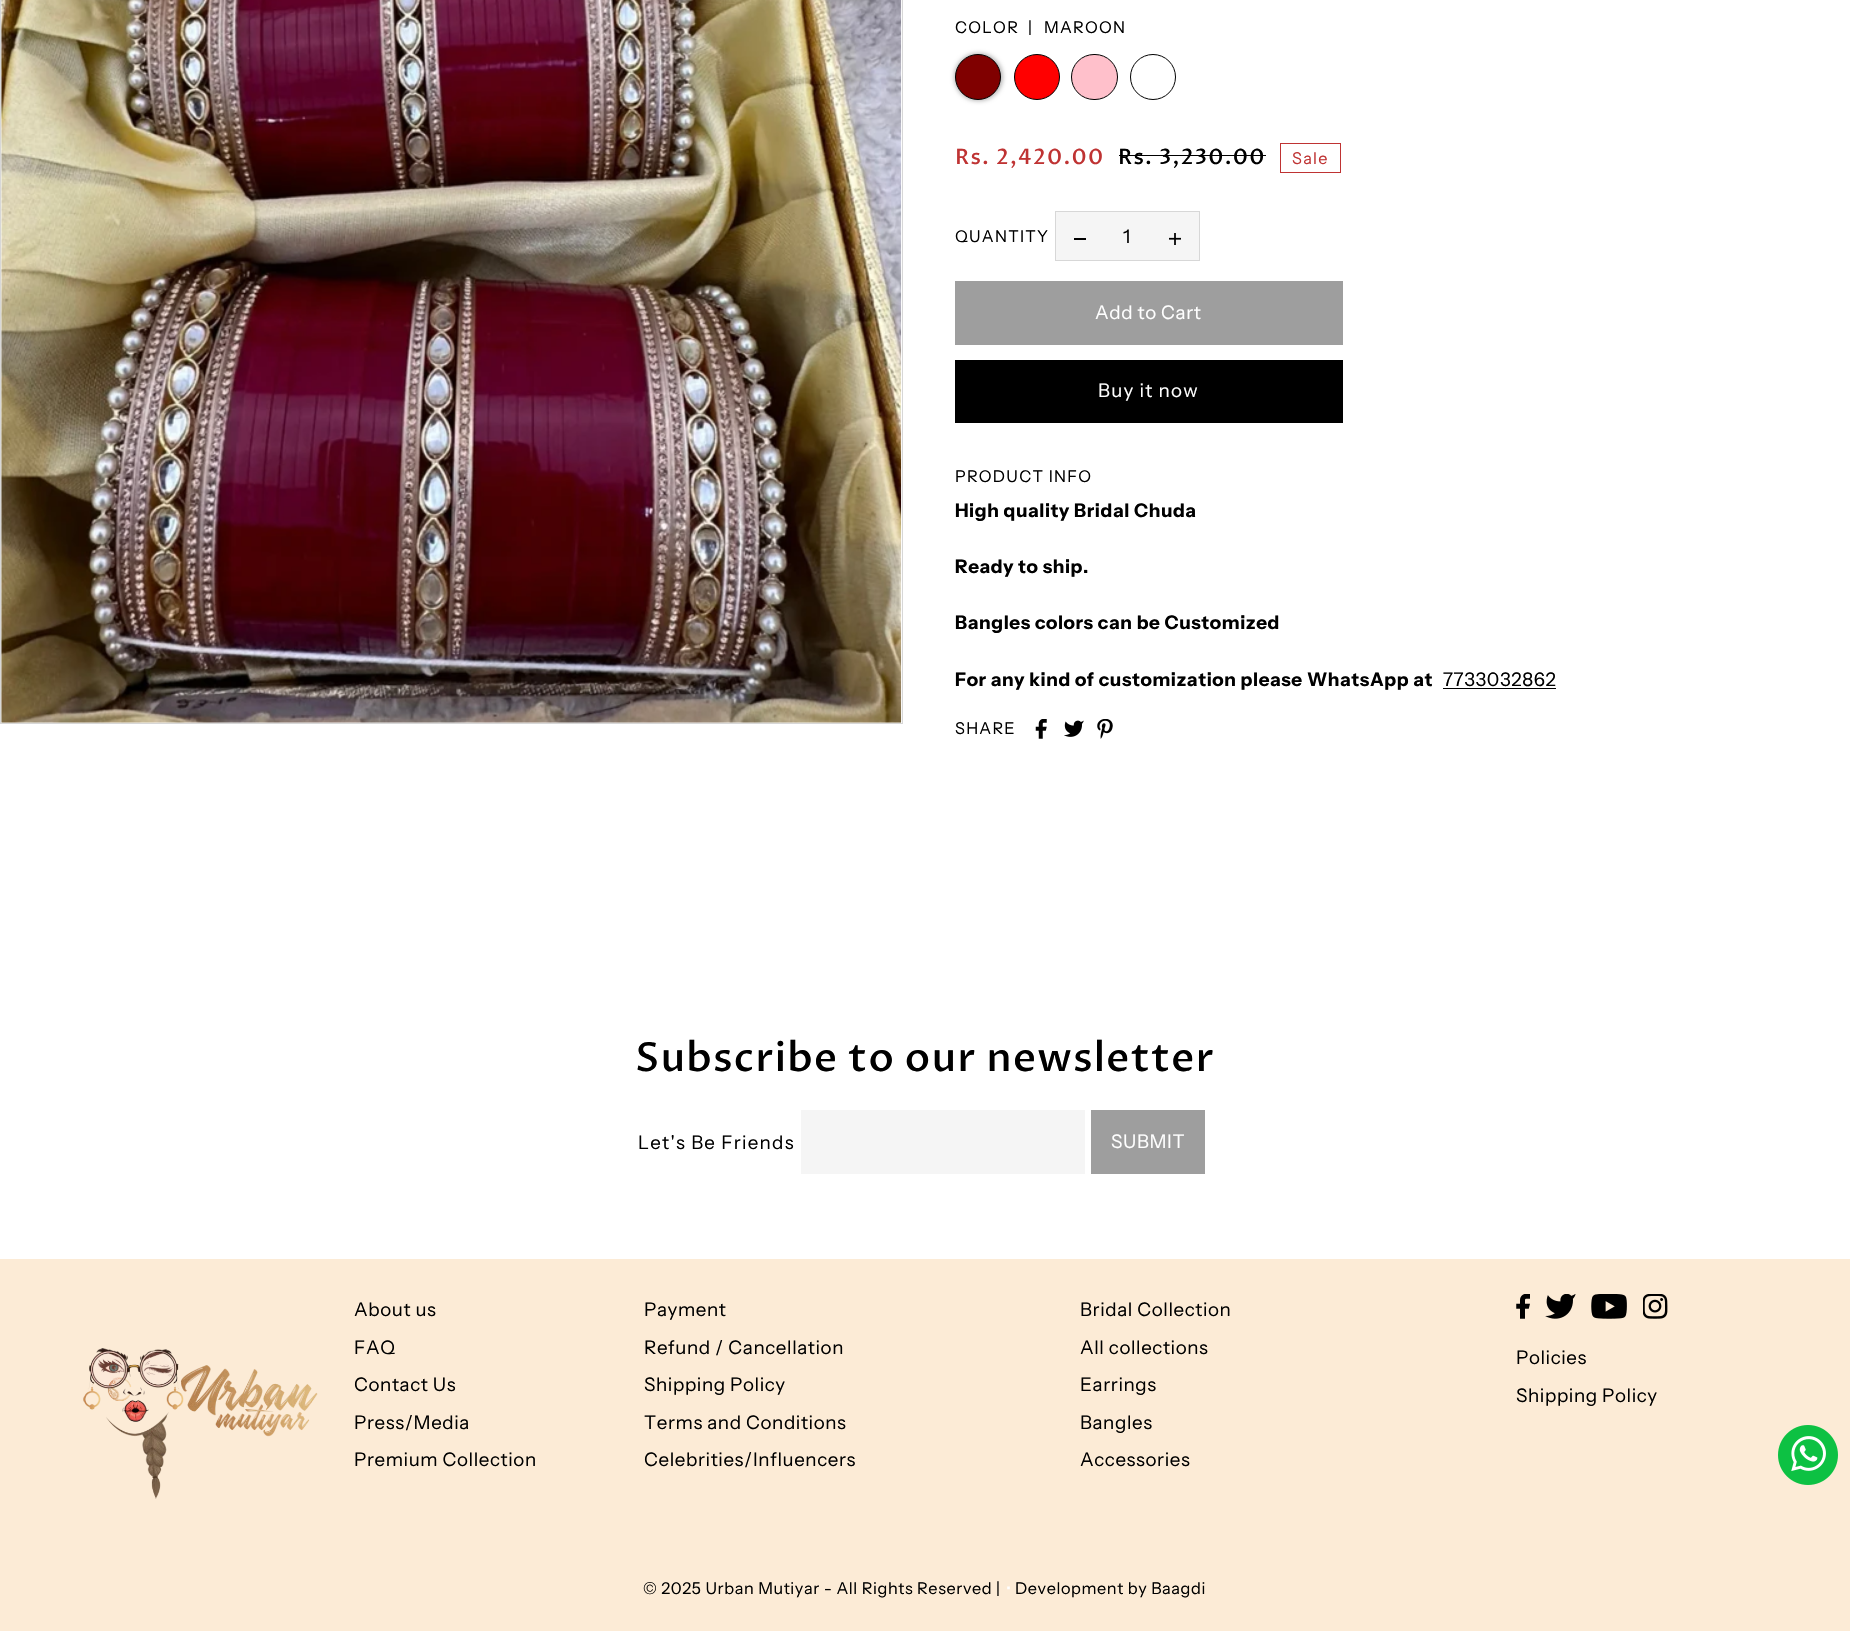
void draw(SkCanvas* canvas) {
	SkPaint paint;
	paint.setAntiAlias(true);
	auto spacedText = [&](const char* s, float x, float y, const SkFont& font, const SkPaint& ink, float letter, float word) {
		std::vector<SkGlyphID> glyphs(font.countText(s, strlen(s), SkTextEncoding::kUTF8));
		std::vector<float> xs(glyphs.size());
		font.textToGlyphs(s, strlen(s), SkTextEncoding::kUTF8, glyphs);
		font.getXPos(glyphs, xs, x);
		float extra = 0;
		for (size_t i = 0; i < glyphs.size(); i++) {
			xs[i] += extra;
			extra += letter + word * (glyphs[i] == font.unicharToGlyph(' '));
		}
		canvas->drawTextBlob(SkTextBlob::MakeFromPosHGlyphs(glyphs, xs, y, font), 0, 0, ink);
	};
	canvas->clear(0xffffffff);
	paint.setStroke(true);
	paint.setStrokeWidth(1);
	paint.setColor(0xffd7d7d7);
	canvas->drawRect(SkRect::MakeXYWH(0.5, -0.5, 902, 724), paint);
	canvas->drawImageRect(SkImages::DeferredFromEncodedData(SkData::MakeFromFileName("img1.png")), SkRect::MakeXYWH(1, 0, 901, 723), SkSamplingOptions());
	SkFont f1(fontMgr->matchFamilyStyle("Instrument Sans", SkFontStyle::Normal()), 16.25);
	f1.setSubpixel(true);
	paint.setStroke(false);
	paint.setColor(0xff000000);
	spacedText("COLOR  |", 955, 33, f1, paint, 1.25, 0);
	spacedText("MAROON", 1044, 33, f1, paint, 1.25, 0);
	paint.setColor(0xffb8b8b8);
	paint.setMaskFilter(SkMaskFilter::MakeBlur(kNormal_SkBlurStyle, 2));
	canvas->drawRoundRect(SkRect::MakeXYWH(954, 53, 49, 48), 24, 24, paint);
	paint.setMaskFilter(nullptr);
	paint.setColor(0xff800000);
	canvas->drawCircle(978, 77, 22.5, paint);
	paint.setStroke(true);
	paint.setColor(0xff000000);
	canvas->drawCircle(978, 77, 22.5, paint);
	paint.setStroke(false);
	paint.setColor(0xffff0000);
	canvas->drawCircle(1037, 77, 22.5, paint);
	paint.setStroke(true);
	paint.setColor(0xff000000);
	canvas->drawCircle(1037, 77, 22.5, paint);
	paint.setStroke(false);
	paint.setColor(0xffffc0cb);
	canvas->drawRoundRect(SkRect::MakeXYWH(1071.5, 54.5, 46, 45), 22.5, 22.5, paint);
	paint.setStroke(true);
	paint.setColor(0xff000000);
	canvas->drawRoundRect(SkRect::MakeXYWH(1071.5, 54.5, 46, 45), 22.5, 22.5, paint);
	canvas->drawCircle(1153, 77, 22.5, paint);
	SkFont f2(fontMgr->matchFamilyStyle("Proza Libre", SkFontStyle(500, SkFontStyle::kNormal_Width, SkFontStyle::kUpright_Slant)), 21.25);
	f2.setSubpixel(true);
	paint.setStroke(false);
	paint.setColor(0xffbf3333);
	spacedText("Rs. 2,420.00", 955, 164, f2, paint, 1.25, 0);
	paint.setColor(0xff000000);
	spacedText("Rs. 3,230.00", 1118, 164, f2, paint, 1.25, 0);
	canvas->drawRect(SkRect::MakeXYWH(1119, 155, 147, 1), paint);
	paint.setStroke(true);
	paint.setColor(0xffbf3333);
	canvas->drawRect(SkRect::MakeXYWH(1280.5, 143.5, 60, 29), paint);
	paint.setStroke(false);
	spacedText("Sale", 1292, 164, f1, paint, 1.25, 0);
	paint.setColor(0xff000000);
	spacedText("QUANTITY", 955, 242, f1, paint, 1.25, 0);
	paint.setColor(0xfff5f5f5);
	canvas->drawRect(SkRect::MakeXYWH(1055.5, 211.5, 144, 49), paint);
	paint.setStroke(true);
	paint.setColor(0xffd7d7d7);
	canvas->drawRect(SkRect::MakeXYWH(1055.5, 211.5, 144, 49), paint);
	paint.setStroke(false);
	paint.setColor(0xff000000);
	canvas->drawRect(SkRect::MakeXYWH(1074, 238, 12, 2), paint);
	SkFont f3(fontMgr->matchFamilyStyle("Instrument Sans", SkFontStyle::Normal()), 18.75);
	f3.setSubpixel(true);
	spacedText("1", 1123, 243, f3, paint, 0.6, 0);
	canvas->drawImageRect(SkImages::DeferredFromEncodedData(SkData::MakeFromFileName("img2.png")), SkRect::MakeXYWH(1169, 233, 12, 12), SkSamplingOptions());
	paint.setColor(0xff9e9e9e);
	canvas->drawRect(SkRect::MakeXYWH(955, 281, 388, 64), paint);
	paint.setColor(0xffffffff);
	spacedText("Add to Cart", 1095, 319, f3, paint, 0.6, 0);
	paint.setColor(0xff000000);
	canvas->drawRect(SkRect::MakeXYWH(955, 360, 388, 63), paint);
	paint.setColor(0xffffffff);
	spacedText("Buy it now", 1098, 397, f3, paint, 1.25, 0);
	paint.setColor(0xff000000);
	spacedText("PRODUCT INFO", 955, 482, f1, paint, 1.25, 0);
	SkFont f4(fontMgr->matchFamilyStyle("Instrument Sans", SkFontStyle::Bold()), 18.75);
	f4.setSubpixel(true);
	spacedText("High quality Bridal Chuda", 955, 517, f4, paint, 0.6, 0);
	spacedText("Ready to ship.", 955, 573, f4, paint, 0.6, 0);
	spacedText("Bangles colors can be Customized", 955, 629, f4, paint, 0.6, 0);
	spacedText("For any kind of customization please WhatsApp at", 955, 686, f4, paint, 0.6, 0);
	spacedText("7733032862", 1443, 686, f3, paint, 0.6, 0);
	canvas->drawRect(SkRect::MakeXYWH(1443, 688, 113, 1), paint);
	spacedText("SHARE", 955, 734, f1, paint, 1.25, 0);
	canvas->drawImageRect(SkImages::DeferredFromEncodedData(SkData::MakeFromFileName("img3.png")), SkRect::MakeXYWH(1035, 719, 12, 20), SkSamplingOptions());
	canvas->drawImageRect(SkImages::DeferredFromEncodedData(SkData::MakeFromFileName("img4.png")), SkRect::MakeXYWH(1064, 720, 20, 17), SkSamplingOptions());
	canvas->drawImageRect(SkImages::DeferredFromEncodedData(SkData::MakeFromFileName("img5.png")), SkRect::MakeXYWH(1097, 719, 16, 20), SkSamplingOptions());
	SkFont f5(fontMgr->matchFamilyStyle("Proza Libre", SkFontStyle(500, SkFontStyle::kNormal_Width, SkFontStyle::kUpright_Slant)), 40);
	f5.setSubpixel(true);
	spacedText("Subscribe to our newsletter", 635, 1071, f5, paint, 1.25, 0);
	spacedText("Let's Be Friends", 638, 1149, f3, paint, 1.25, 0);
	paint.setColor(0xfff5f5f5);
	canvas->drawRect(SkRect::MakeXYWH(801, 1110, 284, 64), paint);
	paint.setColor(0xff9e9e9e);
	canvas->drawRect(SkRect::MakeXYWH(1091, 1110, 114, 64), paint);
	paint.setColor(0xffffffff);
	spacedText("SUBMIT", 1111, 1148, f3, paint, 0.6, 0);
	paint.setColor(0xfffcebd6);
	canvas->drawRect(SkRect::MakeXYWH(0, 1259, 1850, 372), paint);
	canvas->drawImageRect(SkImages::DeferredFromEncodedData(SkData::MakeFromFileName("img6.png")), SkRect::MakeXYWH(83, 1348, 235, 151), SkSamplingOptions());
	paint.setColor(0xff000000);
	spacedText("About us", 354, 1316, f3, paint, 0.6, 0);
	spacedText("FAQ", 354, 1354, f3, paint, 0.6, 0);
	spacedText("Contact Us", 354, 1391, f3, paint, 0.6, 0);
	spacedText("Press/Media", 354, 1429, f3, paint, 0.6, 0);
	spacedText("Premium Collection", 354, 1466, f3, paint, 0.6, 0);
	spacedText("Payment", 644, 1316, f3, paint, 0.6, 0);
	spacedText("Refund / Cancellation", 644, 1354, f3, paint, 0.6, 0);
	spacedText("Shipping Policy", 644, 1391, f3, paint, 0.6, 0);
	spacedText("Terms and Conditions", 644, 1429, f3, paint, 0.6, 0);
	spacedText("Celebrities/Influencers", 644, 1466, f3, paint, 0.6, 0);
	spacedText("Bridal Collection", 1080, 1316, f3, paint, 0.6, 0);
	spacedText("All collections", 1080, 1354, f3, paint, 0.6, 0);
	spacedText("Earrings", 1080, 1391, f3, paint, 0.6, 0);
	spacedText("Bangles", 1080, 1429, f3, paint, 0.6, 0);
	spacedText("Accessories", 1080, 1466, f3, paint, 0.6, 0);
	canvas->drawImageRect(SkImages::DeferredFromEncodedData(SkData::MakeFromFileName("img7.png")), SkRect::MakeXYWH(1516, 1294, 14, 25), SkSamplingOptions());
	canvas->drawImageRect(SkImages::DeferredFromEncodedData(SkData::MakeFromFileName("img8.png")), SkRect::MakeXYWH(1545, 1294, 31, 25), SkSamplingOptions());
	canvas->drawImageRect(SkImages::DeferredFromEncodedData(SkData::MakeFromFileName("img9.png")), SkRect::MakeXYWH(1591, 1294, 36, 25), SkSamplingOptions());
	canvas->drawImageRect(SkImages::DeferredFromEncodedData(SkData::MakeFromFileName("img10.png")), SkRect::MakeXYWH(1643, 1294, 25, 25), SkSamplingOptions());
	spacedText("Policies", 1516, 1364, f3, paint, 0.6, 0);
	spacedText("Shipping Policy", 1516, 1402, f3, paint, 0.6, 0);
	spacedText("© 2025 Urban Mutiyar - All Rights Reserved |", 643, 1594, f1, paint, 0.6, 0);
	paint.setColor(0xffffffff);
	spacedText("•", 1006, 1594, f1, paint, 0.6, 0);
	paint.setColor(0xff000000);
	spacedText("Development by Baagdi", 1015, 1594, f1, paint, 0.6, 0);
	canvas->drawImageRect(SkImages::DeferredFromEncodedData(SkData::MakeFromFileName("img11.png")), SkRect::MakeXYWH(1778, 1425, 60, 60), SkSamplingOptions());
}
